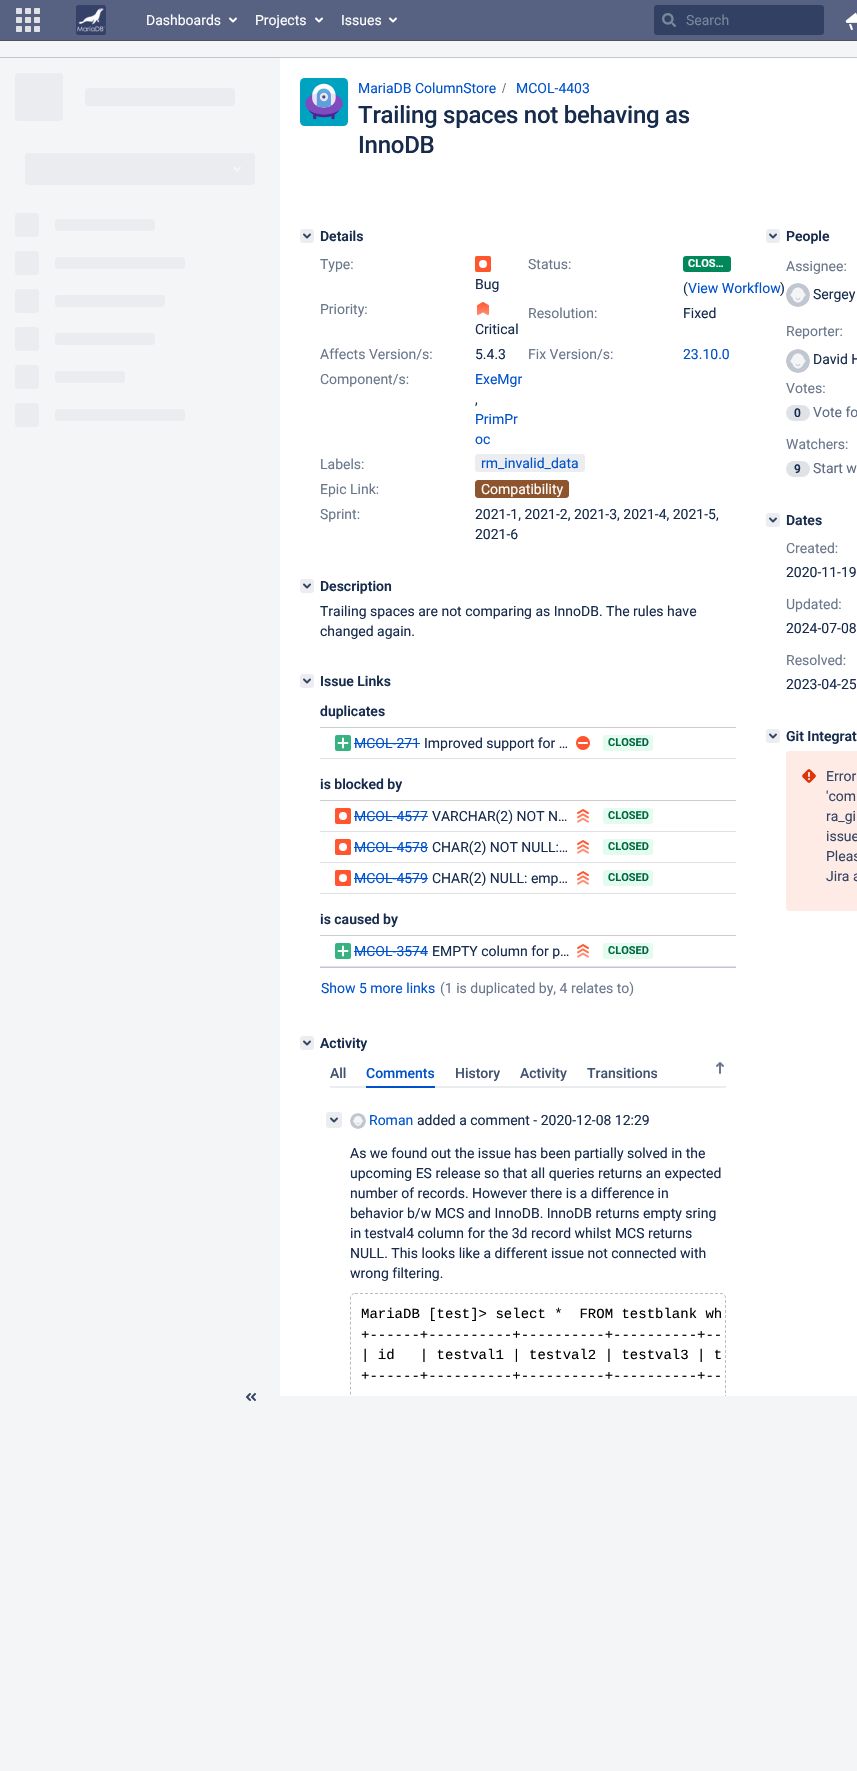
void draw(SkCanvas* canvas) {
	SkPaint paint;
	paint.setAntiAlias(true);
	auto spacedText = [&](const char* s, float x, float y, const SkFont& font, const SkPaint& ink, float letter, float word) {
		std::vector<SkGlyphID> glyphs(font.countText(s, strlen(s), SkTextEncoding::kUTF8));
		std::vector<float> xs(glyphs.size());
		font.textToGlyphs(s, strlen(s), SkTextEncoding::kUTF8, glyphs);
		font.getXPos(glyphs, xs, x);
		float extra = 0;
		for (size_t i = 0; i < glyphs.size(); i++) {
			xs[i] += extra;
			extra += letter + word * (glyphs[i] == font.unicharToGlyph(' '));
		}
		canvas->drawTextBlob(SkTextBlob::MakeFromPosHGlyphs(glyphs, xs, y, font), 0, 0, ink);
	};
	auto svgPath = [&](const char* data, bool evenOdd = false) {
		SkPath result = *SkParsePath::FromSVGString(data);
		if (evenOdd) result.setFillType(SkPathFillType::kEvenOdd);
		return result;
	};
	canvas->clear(0xfff4f5f7);
	paint.setColor(0xff576181);
	canvas->drawRect(SkRect::MakeXYWH(0, 0, 857, 40), paint);
	paint.setColor(0xff525254);
	canvas->drawRect(SkRect::MakeXYWH(0, 40, 857, 1), paint);
	canvas->drawImageRect(SkImages::DeferredFromEncodedData(SkData::MakeFromFileName("img1.png")), SkRect::MakeXYWH(16, 8, 24, 24), SkSamplingOptions());
	canvas->drawImageRect(SkImages::DeferredFromEncodedData(SkData::MakeFromFileName("img2.png")), SkRect::MakeXYWH(76, 5, 30, 30), SkSamplingOptions());
	SkFont f1(fontMgr->matchFamilyStyle("Roboto", SkFontStyle::Normal()), 14);
	f1.setSubpixel(true);
	paint.setColor(0xffffffff);
	canvas->drawString("Dashboards", 146, 25, f1, paint);
	canvas->drawImageRect(SkImages::DeferredFromEncodedData(SkData::MakeFromFileName("img3.png")), SkRect::MakeXYWH(229, 17, 8, 6), SkSamplingOptions());
	canvas->drawString("Projects", 255, 25, f1, paint);
	canvas->drawImageRect(SkImages::DeferredFromEncodedData(SkData::MakeFromFileName("img3.png")), SkRect::MakeXYWH(315, 17, 8, 6), SkSamplingOptions());
	canvas->drawString("Issues", 341, 25, f1, paint);
	canvas->drawImageRect(SkImages::DeferredFromEncodedData(SkData::MakeFromFileName("img3.png")), SkRect::MakeXYWH(389, 17, 8, 6), SkSamplingOptions());
	paint.setColor(0xff324163);
	canvas->drawRoundRect(SkRect::MakeXYWH(654, 5, 170, 30), 3, 3, paint);
	canvas->drawImageRect(SkImages::DeferredFromEncodedData(SkData::MakeFromFileName("img4.png")), SkRect::MakeXYWH(662, 13, 14, 14), SkSamplingOptions());
	paint.setColor(0xff7a869a);
	canvas->drawString("Search", 686, 25, f1, paint);
	canvas->drawImageRect(SkImages::DeferredFromEncodedData(SkData::MakeFromFileName("img5.png")), SkRect::MakeXYWH(845, 12, 12, 18), SkSamplingOptions());
	paint.setColor(0xffc1c7d0);
	canvas->drawRect(SkRect::MakeXYWH(0, 57, 857, 1), paint);
	canvas->drawImageRect(SkImages::DeferredFromEncodedData(SkData::MakeFromFileName("img6.png")), SkRect::MakeXYWH(15, 73, 240, 354), SkSamplingOptions());
	canvas->drawImageRect(SkImages::DeferredFromEncodedData(SkData::MakeFromFileName("img7.png")), SkRect::MakeXYWH(246, 1393, 10, 8), SkSamplingOptions());
	paint.setColor(0xffffffff);
	canvas->drawRect(SkRect::MakeXYWH(280, 58, 577, 1338), paint);
	canvas->drawImageRect(SkImages::DeferredFromEncodedData(SkData::MakeFromFileName("img8.png")), SkRect::MakeXYWH(300, 78, 48, 48), SkSamplingOptions());
	paint.setColor(0xff0052cc);
	canvas->drawString("MariaDB ColumnStore", 358, 93, f1, paint);
	paint.setColor(0xff707070);
	canvas->drawPath(svgPath("M503 93L506 83H505L502 93Z"), paint);
	paint.setColor(0xff0052cc);
	canvas->drawString("MCOL-4403", 516, 93, f1, paint);
	SkFont f2(fontMgr->matchFamilyStyle("Roboto", SkFontStyle(500, SkFontStyle::kNormal_Width, SkFontStyle::kUpright_Slant)), 24);
	f2.setSubpixel(true);
	paint.setColor(0xff172b4d);
	spacedText("Trailing spaces not behaving as", 358, 123, f2, paint, -0.25, 0);
	spacedText("InnoDB", 358, 153, f2, paint, -0.25, 0);
	paint.setColor(0xffebedf0);
	canvas->drawRoundRect(SkRect::MakeXYWH(300, 229, 14, 14), 3, 3, paint);
	canvas->drawImageRect(SkImages::DeferredFromEncodedData(SkData::MakeFromFileName("img9.png")), SkRect::MakeXYWH(303, 233, 8, 6), SkSamplingOptions());
	SkFont f3(fontMgr->matchFamilyStyle("Roboto", SkFontStyle(600, SkFontStyle::kNormal_Width, SkFontStyle::kUpright_Slant)), 14);
	f3.setSubpixel(true);
	paint.setColor(0xff172b4d);
	canvas->drawString("Details", 320, 241, f3, paint);
	paint.setColor(0xff6b778c);
	canvas->drawString("Type:", 320, 269, f1, paint);
	canvas->drawImageRect(SkImages::DeferredFromEncodedData(SkData::MakeFromFileName("img10.png")), SkRect::MakeXYWH(475, 256, 16, 16), SkSamplingOptions());
	paint.setColor(0xff172b4d);
	canvas->drawString("Bug", 475, 289, f1, paint);
	paint.setColor(0xff6b778c);
	canvas->drawString("Status:", 528, 269, f1, paint);
	paint.setColor(0xff00875a);
	canvas->drawRoundRect(SkRect::MakeXYWH(683, 256, 48, 16), 3, 3, paint);
	SkFont f4(fontMgr->matchFamilyStyle("Roboto", SkFontStyle::Bold()), 11);
	f4.setSubpixel(true);
	paint.setColor(0xffffffff);
	canvas->drawString("CLOS…", 688, 267, f4, paint);
	paint.setColor(0xff172b4d);
	canvas->drawString("(", 683, 293, f1, paint);
	paint.setColor(0xff0052cc);
	canvas->drawString("View Workflow", 688, 293, f1, paint);
	paint.setColor(0xff172b4d);
	canvas->drawString(")", 780, 293, f1, paint);
	paint.setColor(0xff6b778c);
	canvas->drawString("Priority:", 320, 314, f1, paint);
	canvas->drawImageRect(SkImages::DeferredFromEncodedData(SkData::MakeFromFileName("img11.png")), SkRect::MakeXYWH(477, 302, 12, 14), SkSamplingOptions());
	paint.setColor(0xff172b4d);
	canvas->drawString("Critical", 475, 334, f1, paint);
	paint.setColor(0xff6b778c);
	canvas->drawString("Resolution:", 528, 318, f1, paint);
	paint.setColor(0xff172b4d);
	canvas->drawString("Fixed", 683, 318, f1, paint);
	paint.setColor(0xff6b778c);
	canvas->drawString("Affects Version/s:", 320, 359, f1, paint);
	paint.setColor(0xff172b4d);
	canvas->drawString("5.4.3", 475, 359, f1, paint);
	paint.setColor(0xff6b778c);
	canvas->drawString("Fix Version/s:", 528, 359, f1, paint);
	paint.setColor(0xff0052cc);
	canvas->drawString("23.10.0", 683, 359, f1, paint);
	paint.setColor(0xff6b778c);
	canvas->drawString("Component/s:", 320, 384, f1, paint);
	paint.setColor(0xff0052cc);
	canvas->drawString("ExeMgr", 475, 384, f1, paint);
	paint.setColor(0xff172b4d);
	canvas->drawString(",", 475, 404, f1, paint);
	paint.setColor(0xff0052cc);
	canvas->drawString("PrimPr", 475, 424, f1, paint);
	canvas->drawString("oc", 475, 444, f1, paint);
	paint.setColor(0xff6b778c);
	canvas->drawString("Labels:", 320, 469, f1, paint);
	paint.setColor(0xffebedf0);
	canvas->drawRoundRect(SkRect::MakeXYWH(475, 454, 110, 18), 3, 3, paint);
	paint.setColor(0xff0052cc);
	canvas->drawString("rm_invalid_data", 481, 468, f1, paint);
	paint.setColor(0xff6b778c);
	canvas->drawString("Epic Link:", 320, 494, f1, paint);
	paint.setColor(0xff8d542e);
	canvas->drawRoundRect(SkRect::MakeXYWH(475.5, 480.5, 93, 17), 2.5, 2.5, paint);
	paint.setStroke(true);
	paint.setStrokeWidth(1);
	canvas->drawRoundRect(SkRect::MakeXYWH(475.5, 480.5, 93, 17), 2.5, 2.5, paint);
	paint.setStroke(false);
	paint.setColor(0xffffffff);
	canvas->drawString("Compatibility", 481, 494, f1, paint);
	paint.setColor(0xff6b778c);
	canvas->drawString("Sprint:", 320, 519, f1, paint);
	paint.setColor(0xff172b4d);
	canvas->drawString("2021-1, 2021-2, 2021-3, 2021-4, 2021-5,", 475, 519, f1, paint);
	canvas->drawString("2021-6", 475, 539, f1, paint);
	paint.setColor(0xffebedf0);
	canvas->drawRoundRect(SkRect::MakeXYWH(300, 579, 14, 14), 3, 3, paint);
	canvas->drawImageRect(SkImages::DeferredFromEncodedData(SkData::MakeFromFileName("img9.png")), SkRect::MakeXYWH(303, 583, 8, 6), SkSamplingOptions());
	paint.setColor(0xff172b4d);
	canvas->drawString("Description", 320, 591, f3, paint);
	canvas->drawString("Trailing spaces are not comparing as InnoDB. The rules have", 320, 616, f1, paint);
	canvas->drawString("changed again.", 320, 636, f1, paint);
	paint.setColor(0xffebedf0);
	canvas->drawRoundRect(SkRect::MakeXYWH(300, 674, 14, 14), 3, 3, paint);
	canvas->drawImageRect(SkImages::DeferredFromEncodedData(SkData::MakeFromFileName("img9.png")), SkRect::MakeXYWH(303, 678, 8, 6), SkSamplingOptions());
	paint.setColor(0xff172b4d);
	canvas->drawString("Issue Links", 320, 686, f3, paint);
	canvas->drawString("duplicates", 320, 716, f3, paint);
	paint.setColor(0xffcccccc);
	canvas->drawRect(SkRect::MakeXYWH(320, 727, 416, 1), paint);
	paint.setColor(0xffdfe1e5);
	canvas->drawRect(SkRect::MakeXYWH(320, 758, 416, 1), paint);
	canvas->drawImageRect(SkImages::DeferredFromEncodedData(SkData::MakeFromFileName("img12.png")), SkRect::MakeXYWH(335, 735, 16, 16), SkSamplingOptions());
	paint.setColor(0xff0052cc);
	canvas->drawString("MCOL-271", 354, 748, f1, paint);
	canvas->drawRect(SkRect::MakeXYWH(354, 743, 66, 1), paint);
	paint.setColor(0xff172b4d);
	canvas->drawString("Improved support for …", 424, 748, f1, paint);
	canvas->drawImageRect(SkImages::DeferredFromEncodedData(SkData::MakeFromFileName("img13.png")), SkRect::MakeXYWH(576, 736, 14, 14), SkSamplingOptions());
	paint.setColor(0xffe3fcef);
	canvas->drawRoundRect(SkRect::MakeXYWH(603, 735, 50, 16), 3, 3, paint);
	paint.setColor(0xff006644);
	canvas->drawString("CLOSED", 608, 746, f4, paint);
	paint.setColor(0xff172b4d);
	canvas->drawString("is blocked by", 320, 789, f3, paint);
	paint.setColor(0xffcccccc);
	canvas->drawRect(SkRect::MakeXYWH(320, 800, 416, 1), paint);
	paint.setColor(0xffdfe1e5);
	canvas->drawRect(SkRect::MakeXYWH(320, 831, 416, 1), paint);
	canvas->drawImageRect(SkImages::DeferredFromEncodedData(SkData::MakeFromFileName("img10.png")), SkRect::MakeXYWH(335, 808, 16, 16), SkSamplingOptions());
	paint.setColor(0xff0052cc);
	canvas->drawString("MCOL-4577", 354, 821, f1, paint);
	canvas->drawRect(SkRect::MakeXYWH(354, 816, 74, 1), paint);
	paint.setColor(0xff172b4d);
	canvas->drawString("VARCHAR(2) NOT N…", 432, 821, f1, paint);
	canvas->drawImageRect(SkImages::DeferredFromEncodedData(SkData::MakeFromFileName("img14.png")), SkRect::MakeXYWH(577, 809, 12, 14), SkSamplingOptions());
	paint.setColor(0xffe3fcef);
	canvas->drawRoundRect(SkRect::MakeXYWH(603, 808, 50, 16), 3, 3, paint);
	paint.setColor(0xff006644);
	canvas->drawString("CLOSED", 608, 819, f4, paint);
	paint.setColor(0xffdfe1e5);
	canvas->drawRect(SkRect::MakeXYWH(320, 862, 416, 1), paint);
	canvas->drawImageRect(SkImages::DeferredFromEncodedData(SkData::MakeFromFileName("img10.png")), SkRect::MakeXYWH(335, 839, 16, 16), SkSamplingOptions());
	paint.setColor(0xff0052cc);
	canvas->drawString("MCOL-4578", 354, 852, f1, paint);
	canvas->drawRect(SkRect::MakeXYWH(354, 847, 74, 1), paint);
	paint.setColor(0xff172b4d);
	canvas->drawString("CHAR(2) NOT NULL:…", 432, 852, f1, paint);
	canvas->drawImageRect(SkImages::DeferredFromEncodedData(SkData::MakeFromFileName("img14.png")), SkRect::MakeXYWH(577, 840, 12, 14), SkSamplingOptions());
	paint.setColor(0xffe3fcef);
	canvas->drawRoundRect(SkRect::MakeXYWH(603, 839, 50, 16), 3, 3, paint);
	paint.setColor(0xff006644);
	canvas->drawString("CLOSED", 608, 850, f4, paint);
	paint.setColor(0xffdfe1e5);
	canvas->drawRect(SkRect::MakeXYWH(320, 893, 416, 1), paint);
	canvas->drawImageRect(SkImages::DeferredFromEncodedData(SkData::MakeFromFileName("img10.png")), SkRect::MakeXYWH(335, 870, 16, 16), SkSamplingOptions());
	paint.setColor(0xff0052cc);
	canvas->drawString("MCOL-4579", 354, 883, f1, paint);
	canvas->drawRect(SkRect::MakeXYWH(354, 878, 74, 1), paint);
	paint.setColor(0xff172b4d);
	canvas->drawString("CHAR(2) NULL: emp…", 432, 883, f1, paint);
	canvas->drawImageRect(SkImages::DeferredFromEncodedData(SkData::MakeFromFileName("img14.png")), SkRect::MakeXYWH(577, 871, 12, 14), SkSamplingOptions());
	paint.setColor(0xffe3fcef);
	canvas->drawRoundRect(SkRect::MakeXYWH(603, 870, 50, 16), 3, 3, paint);
	paint.setColor(0xff006644);
	canvas->drawString("CLOSED", 608, 881, f4, paint);
	paint.setColor(0xff172b4d);
	canvas->drawString("is caused by", 320, 924, f3, paint);
	paint.setColor(0xffcccccc);
	canvas->drawRect(SkRect::MakeXYWH(320, 935, 416, 1), paint);
	paint.setColor(0xffdfe1e5);
	canvas->drawRect(SkRect::MakeXYWH(320, 966, 416, 1), paint);
	canvas->drawImageRect(SkImages::DeferredFromEncodedData(SkData::MakeFromFileName("img12.png")), SkRect::MakeXYWH(335, 943, 16, 16), SkSamplingOptions());
	paint.setColor(0xff0052cc);
	canvas->drawString("MCOL-3574", 354, 956, f1, paint);
	canvas->drawRect(SkRect::MakeXYWH(354, 951, 74, 1), paint);
	paint.setColor(0xff172b4d);
	canvas->drawString("EMPTY column for p…", 432, 956, f1, paint);
	canvas->drawImageRect(SkImages::DeferredFromEncodedData(SkData::MakeFromFileName("img14.png")), SkRect::MakeXYWH(577, 944, 12, 14), SkSamplingOptions());
	paint.setColor(0xffe3fcef);
	canvas->drawRoundRect(SkRect::MakeXYWH(603, 943, 50, 16), 3, 3, paint);
	paint.setColor(0xff006644);
	canvas->drawString("CLOSED", 608, 954, f4, paint);
	paint.setColor(0xffc1c7d0);
	canvas->drawRect(SkRect::MakeXYWH(320, 967, 416, 1), paint);
	paint.setColor(0xff0052cc);
	canvas->drawString("Show 5 more links", 321, 993, f1, paint);
	paint.setColor(0xff6b778c);
	canvas->drawString("(1 is duplicated by, 4 relates to)", 440, 993, f1, paint);
	paint.setColor(0xffebedf0);
	canvas->drawRoundRect(SkRect::MakeXYWH(300, 1036, 14, 14), 3, 3, paint);
	canvas->drawImageRect(SkImages::DeferredFromEncodedData(SkData::MakeFromFileName("img9.png")), SkRect::MakeXYWH(303, 1040, 8, 6), SkSamplingOptions());
	paint.setColor(0xff172b4d);
	canvas->drawString("Activity", 320, 1048, f3, paint);
	SkFont f5(fontMgr->matchFamilyStyle("Roboto", SkFontStyle(500, SkFontStyle::kNormal_Width, SkFontStyle::kUpright_Slant)), 14);
	f5.setSubpixel(true);
	paint.setColor(0xff42526e);
	canvas->drawString("All", 330, 1078, f5, paint);
	paint.setColor(0xff0052cc);
	canvas->drawString("Comments", 366, 1078, f5, paint);
	paint.setColor(0xffebecf0);
	canvas->drawRect(SkRect::MakeXYWH(330, 1086, 396, 2), paint);
	paint.setColor(0xff0052cc);
	canvas->drawRect(SkRect::MakeXYWH(366, 1086, 69, 2), paint);
	paint.setColor(0xff42526e);
	canvas->drawString("History", 455, 1078, f5, paint);
	canvas->drawString("Activity", 520, 1078, f5, paint);
	canvas->drawString("Transitions", 587, 1078, f5, paint);
	canvas->drawImageRect(SkImages::DeferredFromEncodedData(SkData::MakeFromFileName("img15.png")), SkRect::MakeXYWH(716, 1062, 8, 12), SkSamplingOptions());
	paint.setColor(0xffebedf0);
	canvas->drawRoundRect(SkRect::MakeXYWH(326, 1112, 16, 16), 3, 3, paint);
	canvas->drawImageRect(SkImages::DeferredFromEncodedData(SkData::MakeFromFileName("img16.png")), SkRect::MakeXYWH(330, 1117, 8, 6), SkSamplingOptions());
	canvas->drawImageRect(SkImages::DeferredFromEncodedData(SkData::MakeFromFileName("img17.png")), SkRect::MakeXYWH(350, 1113, 16, 16), SkSamplingOptions());
	paint.setColor(0xff0052cc);
	canvas->drawString("Roman", 369, 1125, f1, paint);
	paint.setColor(0xff172b4d);
	canvas->drawString("added a comment - 2020-12-08 12:29", 417, 1125, f1, paint);
	canvas->drawString("As we found out the issue has been partially solved in the", 350, 1158, f1, paint);
	canvas->drawString("upcoming ES release so that all queries returns an expected", 350, 1178, f1, paint);
	canvas->drawString("number of records. However there is a difference in", 350, 1198, f1, paint);
	canvas->drawString("behavior b/w MCS and InnoDB. InnoDB returns empty sring", 350, 1218, f1, paint);
	canvas->drawString("in testval4 column for the 3d record whilst MCS returns", 350, 1238, f1, paint);
	canvas->drawString("NULL. This looks like a different issue not connected with", 350, 1258, f1, paint);
	canvas->drawString("wrong filtering.", 350, 1278, f1, paint);
	canvas->save();
	canvas->clipRect(SkRect::MakeXYWH(350, 1143, 376, 253));
	paint.setStroke(true);
	paint.setColor(0xffbbbbbb);
	paint.setPathEffect(SkDashPathEffect::Make({{3, 2}}, 0));
	canvas->drawPath(svgPath("M355 1293.5H721C723.5 1293.5 725.5 1295.5 725.5 1298V1495C725.5 1497.5 723.5 1499.5 721 1499.5H355C352.5 1499.5 350.5 1497.5 350.5 1495V1298C350.5 1295.5 352.5 1293.5 355 1293.5Z"), paint);
	paint.setPathEffect(nullptr);
	canvas->restore();
	SkFont f6(fontMgr->matchFamilyStyle("Liberation Mono", SkFontStyle::Normal()), 14);
	f6.setSubpixel(true);
	paint.setStroke(false);
	paint.setColor(0xff000000);
	canvas->drawString("MariaDB [test]> select *  FROM testblank wh", 361, 1318, f6, paint);
	canvas->drawString("+------+----------+----------+----------+--", 361, 1339, f6, paint);
	canvas->drawString("| id   | testval1 | testval2 | testval3 | t", 361, 1359, f6, paint);
	canvas->drawString("+------+----------+----------+----------+--", 361, 1380, f6, paint);
	paint.setColor(0xffebedf0);
	canvas->drawRoundRect(SkRect::MakeXYWH(766, 229, 14, 14), 3, 3, paint);
	canvas->drawImageRect(SkImages::DeferredFromEncodedData(SkData::MakeFromFileName("img9.png")), SkRect::MakeXYWH(769, 233, 8, 6), SkSamplingOptions());
	paint.setColor(0xff172b4d);
	canvas->drawString("People", 786, 241, f3, paint);
	paint.setColor(0xff6b778c);
	canvas->drawString("Assignee:", 786, 271, f1, paint);
	canvas->drawImageRect(SkImages::DeferredFromEncodedData(SkData::MakeFromFileName("img18.png")), SkRect::MakeXYWH(786, 283, 24, 24), SkSamplingOptions());
	paint.setColor(0xff172b4d);
	canvas->drawString("Sergey", 813, 299, f1, paint);
	paint.setColor(0xff6b778c);
	canvas->drawString("Reporter:", 786, 336, f1, paint);
	canvas->drawImageRect(SkImages::DeferredFromEncodedData(SkData::MakeFromFileName("img18.png")), SkRect::MakeXYWH(786, 349, 24, 24), SkSamplingOptions());
	paint.setColor(0xff172b4d);
	canvas->drawString("David H", 813, 364, f1, paint);
	paint.setColor(0xff6b778c);
	canvas->drawString("Votes:", 786, 393, f1, paint);
	paint.setColor(0xffdfe2e6);
	canvas->drawRoundRect(SkRect::MakeXYWH(786, 405, 24, 16), 8, 8, paint);
	SkFont f7(fontMgr->matchFamilyStyle("Roboto", SkFontStyle(600, SkFontStyle::kNormal_Width, SkFontStyle::kUpright_Slant)), 12);
	f7.setSubpixel(true);
	paint.setColor(0xff172b4d);
	canvas->drawString("0", 794, 417, f7, paint);
	paint.setColor(0xff5e6c84);
	canvas->drawString("Vote fo", 813, 417, f1, paint);
	paint.setColor(0xff6b778c);
	canvas->drawString("Watchers:", 786, 449, f1, paint);
	paint.setColor(0xffdfe2e6);
	canvas->drawRoundRect(SkRect::MakeXYWH(786, 461, 24, 16), 8, 8, paint);
	paint.setColor(0xff172b4d);
	canvas->drawString("9", 794, 473, f7, paint);
	paint.setColor(0xff5e6c84);
	canvas->drawString("Start w", 813, 473, f1, paint);
	paint.setColor(0xffebedf0);
	canvas->drawRoundRect(SkRect::MakeXYWH(766, 513, 14, 14), 3, 3, paint);
	canvas->drawImageRect(SkImages::DeferredFromEncodedData(SkData::MakeFromFileName("img9.png")), SkRect::MakeXYWH(769, 517, 8, 6), SkSamplingOptions());
	paint.setColor(0xff172b4d);
	canvas->drawString("Dates", 786, 525, f3, paint);
	paint.setColor(0xff6b778c);
	canvas->drawString("Created:", 786, 553, f1, paint);
	paint.setColor(0xff172b4d);
	canvas->drawString("2020-11-19", 786, 577, f1, paint);
	paint.setColor(0xff6b778c);
	canvas->drawString("Updated:", 786, 609, f1, paint);
	paint.setColor(0xff172b4d);
	canvas->drawString("2024-07-08", 786, 633, f1, paint);
	paint.setColor(0xff6b778c);
	canvas->drawString("Resolved:", 786, 665, f1, paint);
	paint.setColor(0xff172b4d);
	canvas->drawString("2023-04-25", 786, 689, f1, paint);
	paint.setColor(0xffebedf0);
	canvas->drawRoundRect(SkRect::MakeXYWH(766, 729, 14, 14), 3, 3, paint);
	canvas->drawImageRect(SkImages::DeferredFromEncodedData(SkData::MakeFromFileName("img9.png")), SkRect::MakeXYWH(769, 733, 8, 6), SkSamplingOptions());
	paint.setColor(0xff172b4d);
	canvas->drawString("Git Integrat", 786, 741, f3, paint);
	paint.setColor(0xffffebe6);
	canvas->drawRoundRect(SkRect::MakeXYWH(786, 751, 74, 160), 3, 3, paint);
	canvas->drawImageRect(SkImages::DeferredFromEncodedData(SkData::MakeFromFileName("img19.png")), SkRect::MakeXYWH(802, 769, 14, 14), SkSamplingOptions());
	paint.setColor(0xff344563);
	canvas->drawString("Error", 826, 781, f1, paint);
	canvas->drawString("'com", 826, 801, f1, paint);
	canvas->drawString("ra_gi", 826, 821, f1, paint);
	canvas->drawString("issue", 826, 841, f1, paint);
	canvas->drawString("Pleas", 826, 861, f1, paint);
	canvas->drawString("Jira a", 826, 881, f1, paint);
}
